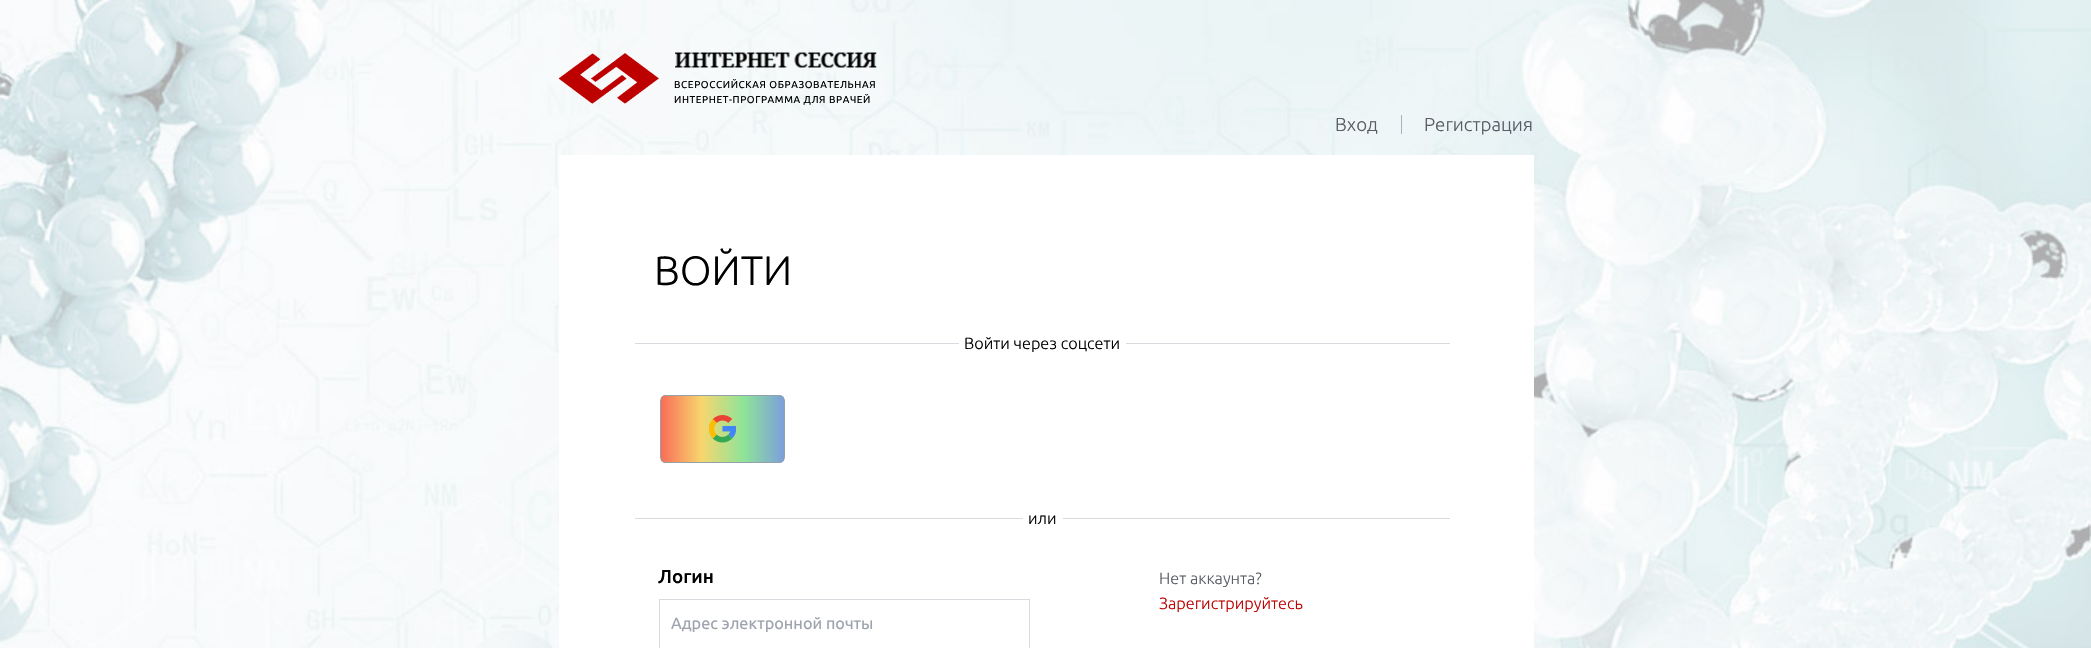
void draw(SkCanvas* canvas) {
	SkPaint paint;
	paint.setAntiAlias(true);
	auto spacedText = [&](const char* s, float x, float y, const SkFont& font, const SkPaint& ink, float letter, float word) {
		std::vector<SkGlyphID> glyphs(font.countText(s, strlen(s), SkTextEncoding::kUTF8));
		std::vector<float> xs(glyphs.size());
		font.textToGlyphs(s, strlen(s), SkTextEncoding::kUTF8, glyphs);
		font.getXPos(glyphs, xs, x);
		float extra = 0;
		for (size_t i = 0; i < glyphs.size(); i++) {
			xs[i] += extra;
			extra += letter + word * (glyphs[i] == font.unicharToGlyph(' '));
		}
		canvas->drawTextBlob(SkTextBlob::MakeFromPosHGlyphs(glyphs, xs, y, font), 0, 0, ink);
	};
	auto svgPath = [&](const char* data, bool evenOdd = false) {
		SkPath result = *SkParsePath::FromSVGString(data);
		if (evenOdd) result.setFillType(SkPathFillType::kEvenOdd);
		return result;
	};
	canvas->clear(0xffffffff);
	canvas->drawImageRect(SkImages::DeferredFromEncodedData(SkData::MakeFromFileName("img1.png")), SkRect::MakeXYWH(0, 0, 2091, 648), SkSamplingOptions());
	canvas->drawImageRect(SkImages::DeferredFromEncodedData(SkData::MakeFromFileName("img2.png")), SkRect::MakeXYWH(558, 53, 101, 51), SkSamplingOptions());
	canvas->drawImageRect(SkImages::DeferredFromEncodedData(SkData::MakeFromFileName("img3.png")), SkRect::MakeXYWH(675, 52, 202, 16), SkSamplingOptions());
	SkFont f1(fontMgr->matchFamilyStyle("Ubuntu", SkFontStyle::Normal()), 10);
	f1.setSubpixel(true);
	paint.setColor(0xff000000);
	spacedText("ВСЕРОССИЙСКАЯ ОБРАЗОВАТЕЛЬНАЯ", 674, 88, f1, paint, 0.6, 0);
	spacedText("ИНТЕРНЕТ-ПРОГРАММА ДЛЯ ВРАЧЕЙ", 674, 103, f1, paint, 0.6, 0);
	paint.setColor(0xffadb1bc);
	canvas->drawRect(SkRect::MakeXYWH(1401, 115, 1, 19), paint);
	SkFont f2(fontMgr->matchFamilyStyle("Ubuntu", SkFontStyle(300, SkFontStyle::kNormal_Width, SkFontStyle::kUpright_Slant)), 18.75);
	f2.setSubpixel(true);
	paint.setColor(0xff585c64);
	canvas->drawString("Вход", 1335, 131, f2, paint);
	canvas->drawString("Регистрация", 1424, 131, f2, paint);
	paint.setColor(0xffffffff);
	canvas->drawRect(SkRect::MakeXYWH(559, 155, 975, 493), paint);
	SkFont f3(fontMgr->matchFamilyStyle("Ubuntu", SkFontStyle(300, SkFontStyle::kNormal_Width, SkFontStyle::kUpright_Slant)), 41);
	f3.setSubpixel(true);
	paint.setColor(0xff000000);
	canvas->drawString("ВОЙТИ", 654, 285, f3, paint);
	paint.setColor(0xffd8dadf);
	canvas->drawRect(SkRect::MakeXYWH(635, 343, 324, 1), paint);
	SkFont f4(fontMgr->matchFamilyStyle("Ubuntu", SkFontStyle(300, SkFontStyle::kNormal_Width, SkFontStyle::kUpright_Slant)), 16.25);
	f4.setSubpixel(true);
	paint.setColor(0xff000000);
	canvas->drawString("Войти через соцсети", 964, 349, f4, paint);
	paint.setColor(0xffd8dadf);
	canvas->drawRect(SkRect::MakeXYWH(1126, 343, 324, 1), paint);
	canvas->save();
	canvas->clipPath(svgPath("M666 395H779C782.5 395 785 397.5 785 401V457C785 460.5 782.5 463 779 463H666C662.5 463 660 460.5 660 457V401C660 397.5 662.5 395 666 395Z"), true);
	{
		const SkColor colors[] = {0xfff96d58, 0xfff7d66e, 0xff8fe498, 0xff7c9fdc};
		const float stops[] = {0, 0.33, 0.67, 1};
		const SkPoint ends[] = {{661, 429}, {784, 429}};
		paint.setShader(SkGradientShader::MakeLinear(ends, colors, stops, 4, SkTileMode::kClamp));
		paint.setAlpha(255);
	}
	canvas->drawRect(SkRect::MakeXYWH(661, 395, 123, 68), paint);
	canvas->restore();
	paint.setStroke(true);
	paint.setStrokeWidth(1);
	paint.setShader(nullptr);
	paint.setColor(0xff94a1a9);
	canvas->drawRoundRect(SkRect::MakeXYWH(660.5, 395.5, 124, 67), 5.5, 5.5, paint);
	canvas->drawImageRect(SkImages::DeferredFromEncodedData(SkData::MakeFromFileName("img4.png")), SkRect::MakeXYWH(709, 415, 27, 28), SkSamplingOptions());
	paint.setStroke(false);
	paint.setColor(0xffd8dadf);
	canvas->drawRect(SkRect::MakeXYWH(635, 518, 388, 1), paint);
	paint.setColor(0xff000000);
	canvas->drawString("или", 1028, 524, f4, paint);
	paint.setColor(0xffd8dadf);
	canvas->drawRect(SkRect::MakeXYWH(1063, 518, 387, 1), paint);
	SkFont f5(fontMgr->matchFamilyStyle("Ubuntu", SkFontStyle(500, SkFontStyle::kNormal_Width, SkFontStyle::kUpright_Slant)), 18.75);
	f5.setSubpixel(true);
	paint.setColor(0xff000000);
	canvas->drawString("Логин", 658, 583, f5, paint);
	paint.setStroke(true);
	paint.setColor(0xffd8dadf);
	canvas->drawRect(SkRect::MakeXYWH(659.5, 599.5, 370, 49), paint);
	SkFont f6(fontMgr->matchFamilyStyle("Ubuntu", SkFontStyle::Normal()), 16.25);
	f6.setSubpixel(true);
	paint.setStroke(false);
	paint.setColor(0xff9ea3ae);
	canvas->drawString("Адрес электронной почты", 671, 629, f6, paint);
	paint.setColor(0xff585c64);
	canvas->drawString("Нет аккаунта?", 1159, 584, f4, paint);
	paint.setColor(0xffbd0100);
	canvas->drawString("Зарегистрируйтесь", 1159, 609, f4, paint);
}
